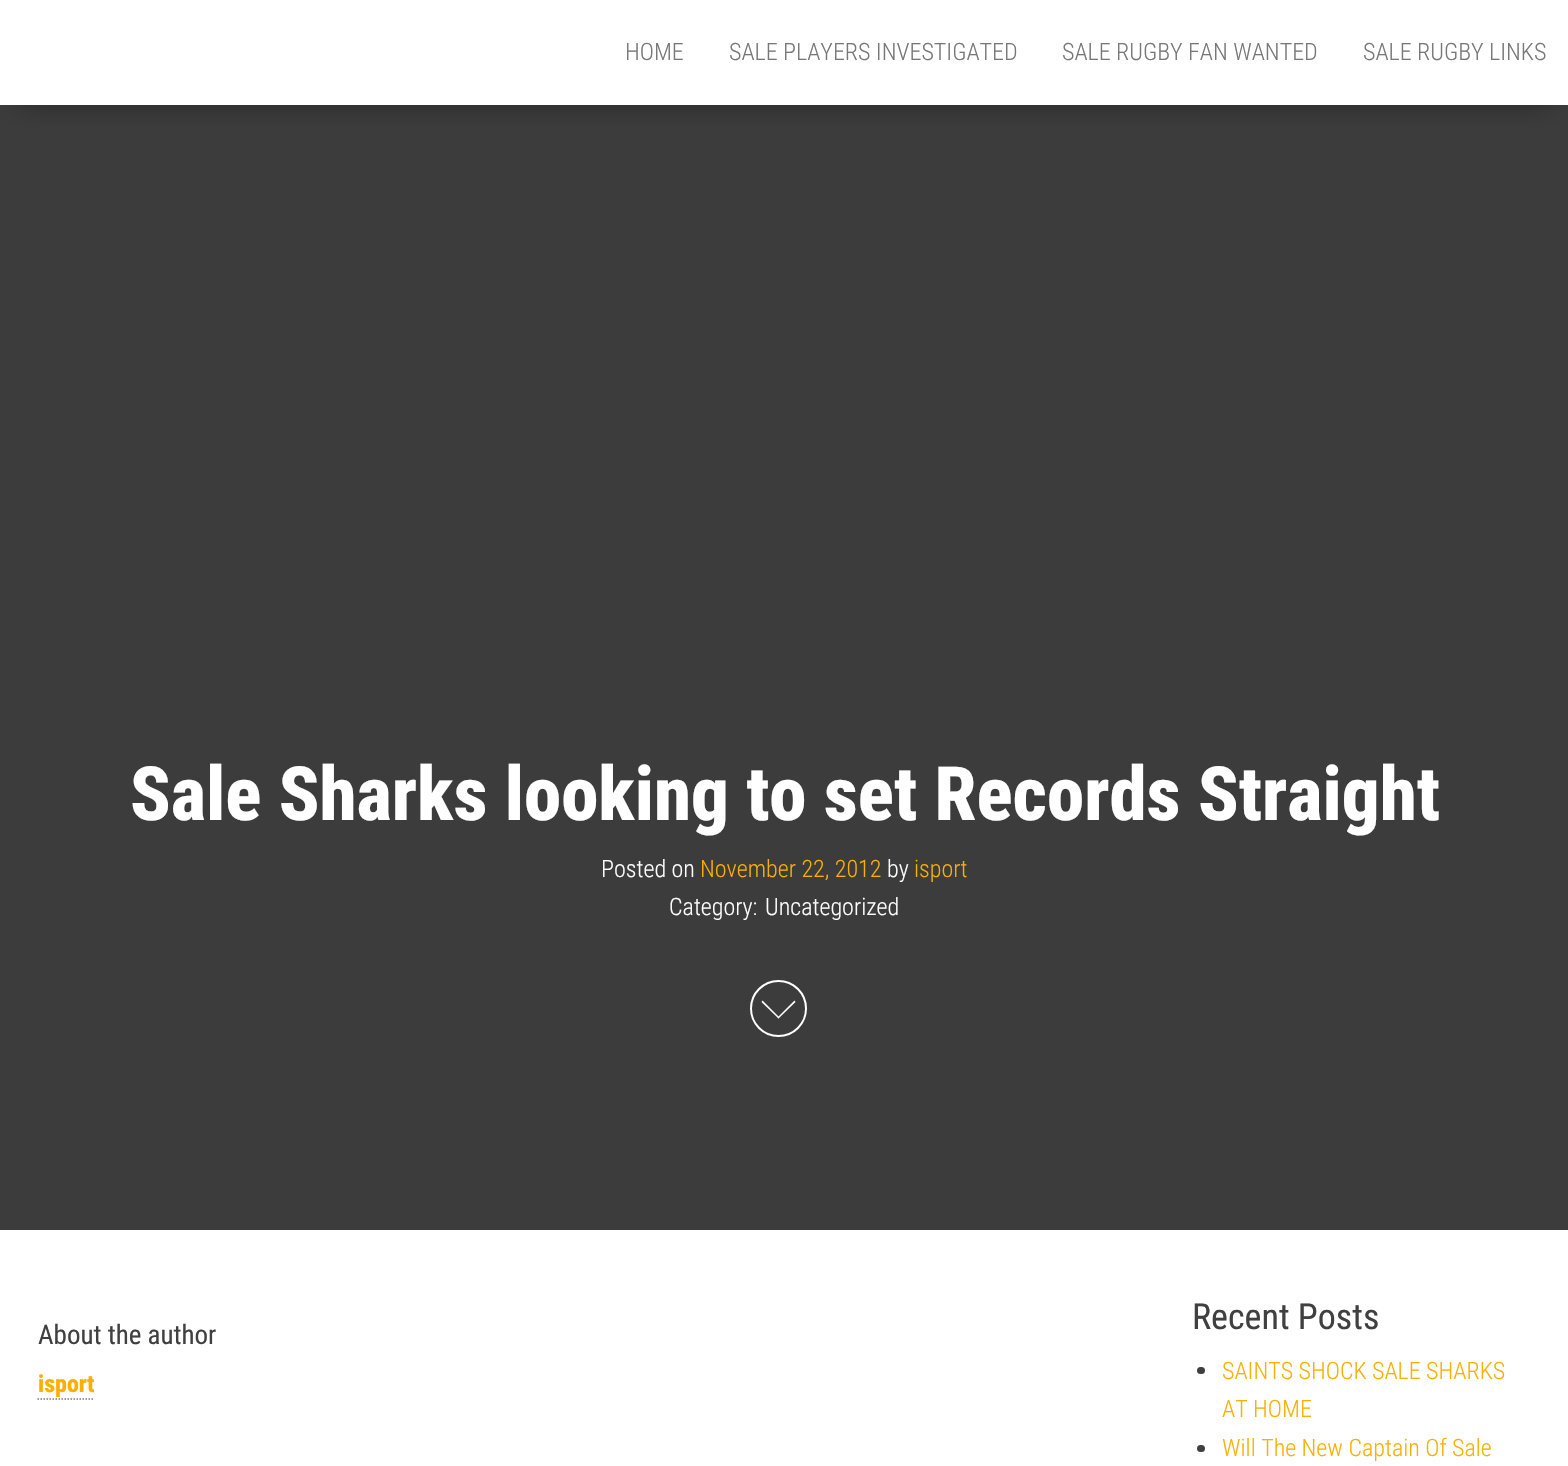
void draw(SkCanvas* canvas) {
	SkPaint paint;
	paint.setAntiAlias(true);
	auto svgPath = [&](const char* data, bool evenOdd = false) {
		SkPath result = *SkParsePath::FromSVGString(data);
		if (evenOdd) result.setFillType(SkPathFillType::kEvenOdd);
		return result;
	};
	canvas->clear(0xffffffff);
	paint.setColor(0xff3c3c3c);
	canvas->drawRect(SkRect::MakeXYWH(0, 105, 1568, 1125), paint);
	canvas->save();
	canvas->clipRect(SkRect::MakeXYWH(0, 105, 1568, 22));
	paint.setColor(0x6b000000);
	paint.setMaskFilter(SkMaskFilter::MakeBlur(kNormal_SkBlurStyle, 15));
	canvas->drawRect(SkRect::MakeXYWH(18, 33, 1533, 69), paint);
	paint.setMaskFilter(nullptr);
	canvas->restore();
	SkFont f1(fontMgr->matchFamilyStyle("Roboto Condensed", SkFontStyle(300, SkFontStyle::kNormal_Width, SkFontStyle::kUpright_Slant)), 24);
	f1.setSubpixel(true);
	paint.setColor(0xff777777);
	canvas->drawString("HOME", 625, 60, f1, paint);
	canvas->drawString("SALE PLAYERS INVESTIGATED", 729, 60, f1, paint);
	canvas->drawString("SALE RUGBY FAN WANTED", 1062, 60, f1, paint);
	canvas->drawString("SALE RUGBY LINKS", 1363, 60, f1, paint);
	SkFont f2(fontMgr->matchFamilyStyle("Roboto Condensed", SkFontStyle(800, SkFontStyle::kNormal_Width, SkFontStyle::kUpright_Slant)), 75);
	f2.setSubpixel(true);
	paint.setColor(0xffffffff);
	canvas->drawString("Sale Sharks looking to set Records Straight", 130, 820, f2, paint);
	canvas->drawString("Posted on", 601, 877, f1, paint);
	paint.setColor(0xfffab000);
	canvas->drawString("November 22, 2012", 700, 877, f1, paint);
	paint.setColor(0xffffffff);
	canvas->drawString("by", 887, 877, f1, paint);
	paint.setColor(0xfffab000);
	canvas->drawString("isport", 914, 877, f1, paint);
	paint.setColor(0xffffffff);
	canvas->drawString("Category:", 669, 915, f1, paint);
	canvas->drawString("Uncategorized", 765, 915, f1, paint);
	paint.setStroke(true);
	paint.setStrokeWidth(2);
	canvas->drawCircle(778.5, 1008.5, 27.5, paint);
	paint.setStroke(false);
	canvas->drawPath(svgPath("M777.5 1017.5L794.5 1000.5L795.5 1002L778.5 1018.5Z"), paint);
	canvas->drawPath(svgPath("M761.5 1002L762.5 1000.5L779.5 1017.5L778.5 1018.5Z"), paint);
	SkFont f3(fontMgr->matchFamilyStyle("Roboto Condensed", SkFontStyle::Normal()), 27);
	f3.setSubpixel(true);
	paint.setColor(0xff404040);
	canvas->drawString("About the author", 38, 1344, f3, paint);
	SkFont f4(fontMgr->matchFamilyStyle("Roboto Condensed", SkFontStyle(800, SkFontStyle::kNormal_Width, SkFontStyle::kUpright_Slant)), 24);
	f4.setSubpixel(true);
	paint.setColor(0xfffab000);
	canvas->drawString("isport", 38, 1392, f4, paint);
	paint.setStroke(true);
	paint.setStrokeWidth(1.5);
	paint.setColor(0xff777777);
	paint.setPathEffect(SkDashPathEffect::Make({{1.5f, 1.5f}}, 0));
	canvas->drawPath(svgPath("M37.5 1399H94.5"), paint);
	paint.setPathEffect(nullptr);
	SkFont f5(fontMgr->matchFamilyStyle("Roboto Condensed", SkFontStyle::Normal()), 36);
	f5.setSubpixel(true);
	paint.setStroke(false);
	paint.setColor(0xff404040);
	canvas->drawString("Recent Posts", 1192, 1329, f5, paint);
	canvas->drawRoundRect(SkRect::MakeXYWH(1197, 1367, 8, 7), 3.5, 3.5, paint);
	paint.setColor(0xfffab000);
	canvas->drawString("SAINTS SHOCK SALE SHARKS", 1222, 1379, f1, paint);
	canvas->drawString("AT HOME", 1222, 1417, f1, paint);
	paint.setColor(0xff404040);
	canvas->drawRoundRect(SkRect::MakeXYWH(1197, 1445, 8, 7), 3.5, 3.5, paint);
	paint.setColor(0xfffab000);
	canvas->drawString("Will The New Captain Of Sale", 1222, 1456, f1, paint);
}
